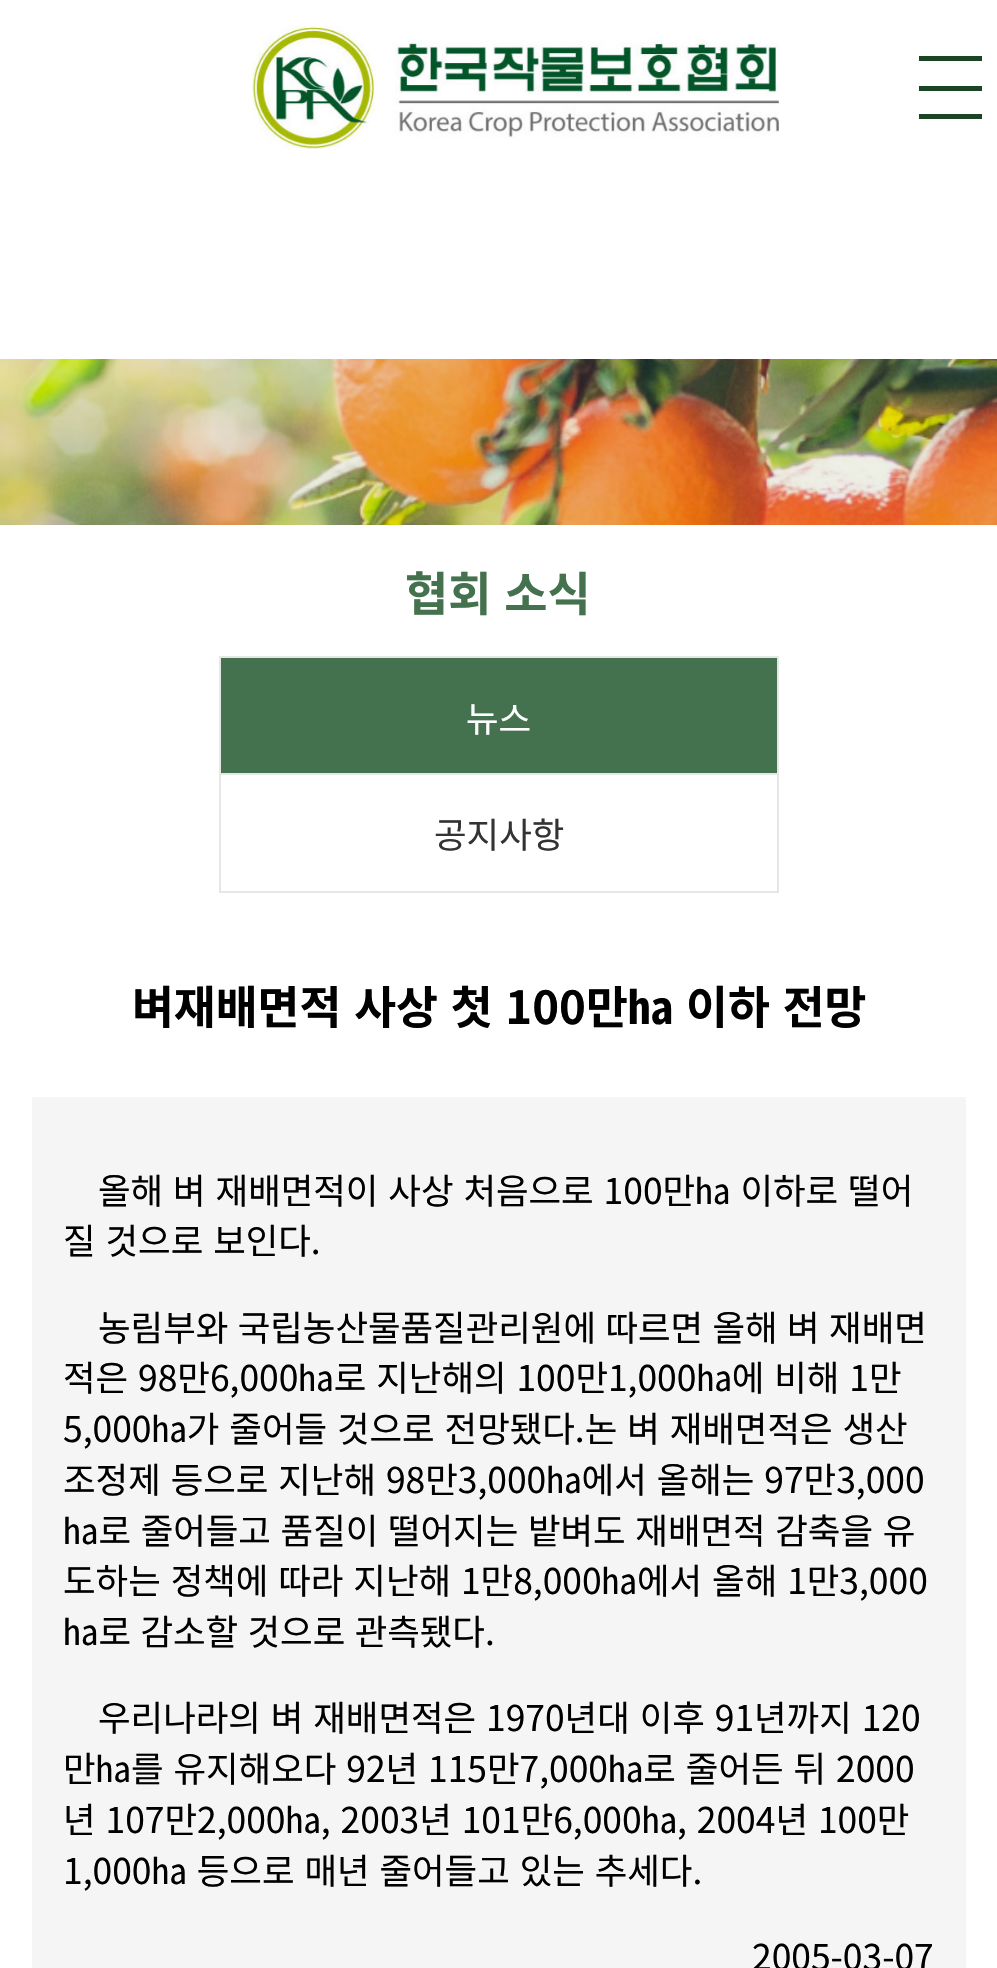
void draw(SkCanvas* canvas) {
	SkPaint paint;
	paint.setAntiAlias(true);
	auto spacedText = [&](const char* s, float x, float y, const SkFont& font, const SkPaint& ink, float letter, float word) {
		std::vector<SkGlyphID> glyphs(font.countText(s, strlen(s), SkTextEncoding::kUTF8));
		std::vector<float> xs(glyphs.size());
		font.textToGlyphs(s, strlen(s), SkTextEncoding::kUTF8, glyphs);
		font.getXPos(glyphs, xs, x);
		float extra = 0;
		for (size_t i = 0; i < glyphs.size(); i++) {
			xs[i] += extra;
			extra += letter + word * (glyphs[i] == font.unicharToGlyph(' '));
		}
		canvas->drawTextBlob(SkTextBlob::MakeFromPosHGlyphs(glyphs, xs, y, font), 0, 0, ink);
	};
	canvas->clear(0xffffffff);
	canvas->drawImageRect(SkImages::DeferredFromEncodedData(SkData::MakeFromFileName("img1.png")), SkRect::MakeXYWH(251, 26, 528, 123), SkSamplingOptions());
	paint.setColor(0xff1a4423);
	canvas->drawRect(SkRect::MakeXYWH(919, 56, 63, 5), paint);
	canvas->drawRect(SkRect::MakeXYWH(919, 86, 63, 5), paint);
	canvas->drawRect(SkRect::MakeXYWH(919, 114, 63, 5), paint);
	canvas->drawImageRect(SkImages::DeferredFromEncodedData(SkData::MakeFromFileName("img2.png")), SkRect::MakeXYWH(0, 359, 997, 166), SkSamplingOptions());
	SkFont f1(fontMgr->matchFamilyStyle("Noto Sans KR", SkFontStyle::Bold()), 47);
	f1.setSubpixel(true);
	paint.setColor(0xff45724e);
	spacedText("협회 소식", 405, 611, f1, paint, 0, 2);
	canvas->drawRect(SkRect::MakeXYWH(220, 657, 558, 117), paint);
	paint.setStroke(true);
	paint.setStrokeWidth(2);
	paint.setColor(0xffe6e6e6);
	canvas->drawRect(SkRect::MakeXYWH(220, 657, 558, 117), paint);
	SkFont f2(fontMgr->matchFamilyStyle("Noto Sans KR", SkFontStyle::Normal()), 35.4);
	f2.setSubpixel(true);
	paint.setStroke(false);
	paint.setColor(0xffffffff);
	canvas->drawString("뉴스", 466, 732, f2, paint);
	paint.setColor(0xffe6e6e6);
	canvas->drawRect(SkRect::MakeXYWH(777, 775, 2, 118), paint);
	canvas->drawRect(SkRect::MakeXYWH(219, 891, 560, 2), paint);
	canvas->drawRect(SkRect::MakeXYWH(219, 775, 2, 118), paint);
	paint.setColor(0xff333333);
	canvas->drawString("공지사항", 434, 848, f2, paint);
	SkFont f3(fontMgr->matchFamilyStyle("Noto Sans KR", SkFontStyle::Bold()), 45.5);
	f3.setSubpixel(true);
	paint.setColor(0xff000000);
	spacedText("벼재배면적 사상 첫 100만㏊ 이하 전망", 132, 1024, f3, paint, 0, 2.5);
	paint.setColor(0xfff5f5f5);
	canvas->drawRect(SkRect::MakeXYWH(32, 1097, 934, 871), paint);
	paint.setColor(0xff000000);
	spacedText("올해 벼 재배면적이 사상 처음으로 100만㏊ 이하로 떨어", 98, 1204, f2, paint, 0, 2);
	spacedText("질 것으로 보인다.", 63, 1254, f2, paint, 0, 2);
	spacedText("농림부와 국립농산물품질관리원에 따르면 올해 벼 재배면", 98, 1341, f2, paint, 0, 1.5);
	spacedText("적은 98만6,000㏊로 지난해의 100만1,000㏊에 비해 1만", 63, 1391, f2, paint, 0, 2);
	spacedText("5,000㏊가 줄어들 것으로 전망됐다.논 벼 재배면적은 생산", 63, 1442, f2, paint, 0, 2);
	spacedText("조정제 등으로 지난해 98만3,000㏊에서 올해는 97만3,000", 63, 1493, f2, paint, 0, 2);
	spacedText("㏊로 줄어들고 품질이 떨어지는 밭벼도 재배면적 감축을 유", 63, 1544, f2, paint, 0, 1.75);
	spacedText("도하는 정책에 따라 지난해 1만8,000㏊에서 올해 1만3,000", 63, 1594, f2, paint, 0, 2);
	spacedText("㏊로 감소할 것으로 관측됐다.", 63, 1645, f2, paint, 0, 1.5);
	spacedText("우리나라의 벼 재배면적은 1970년대 이후 91년까지 120", 98, 1731, f2, paint, 0, 2);
	spacedText("만㏊를 유지해오다 92년 115만7,000㏊로 줄어든 뒤 2000", 63, 1782, f2, paint, 0, 2);
	spacedText("년 107만2,000㏊, 2003년 101만6,000㏊, 2004년 100만", 63, 1833, f2, paint, 0, 2);
	spacedText("1,000㏊ 등으로 매년 줄어들고 있는 추세다.", 63, 1884, f2, paint, 0, 2);
	canvas->drawString("2005-03-07", 752, 1970, f2, paint);
}
